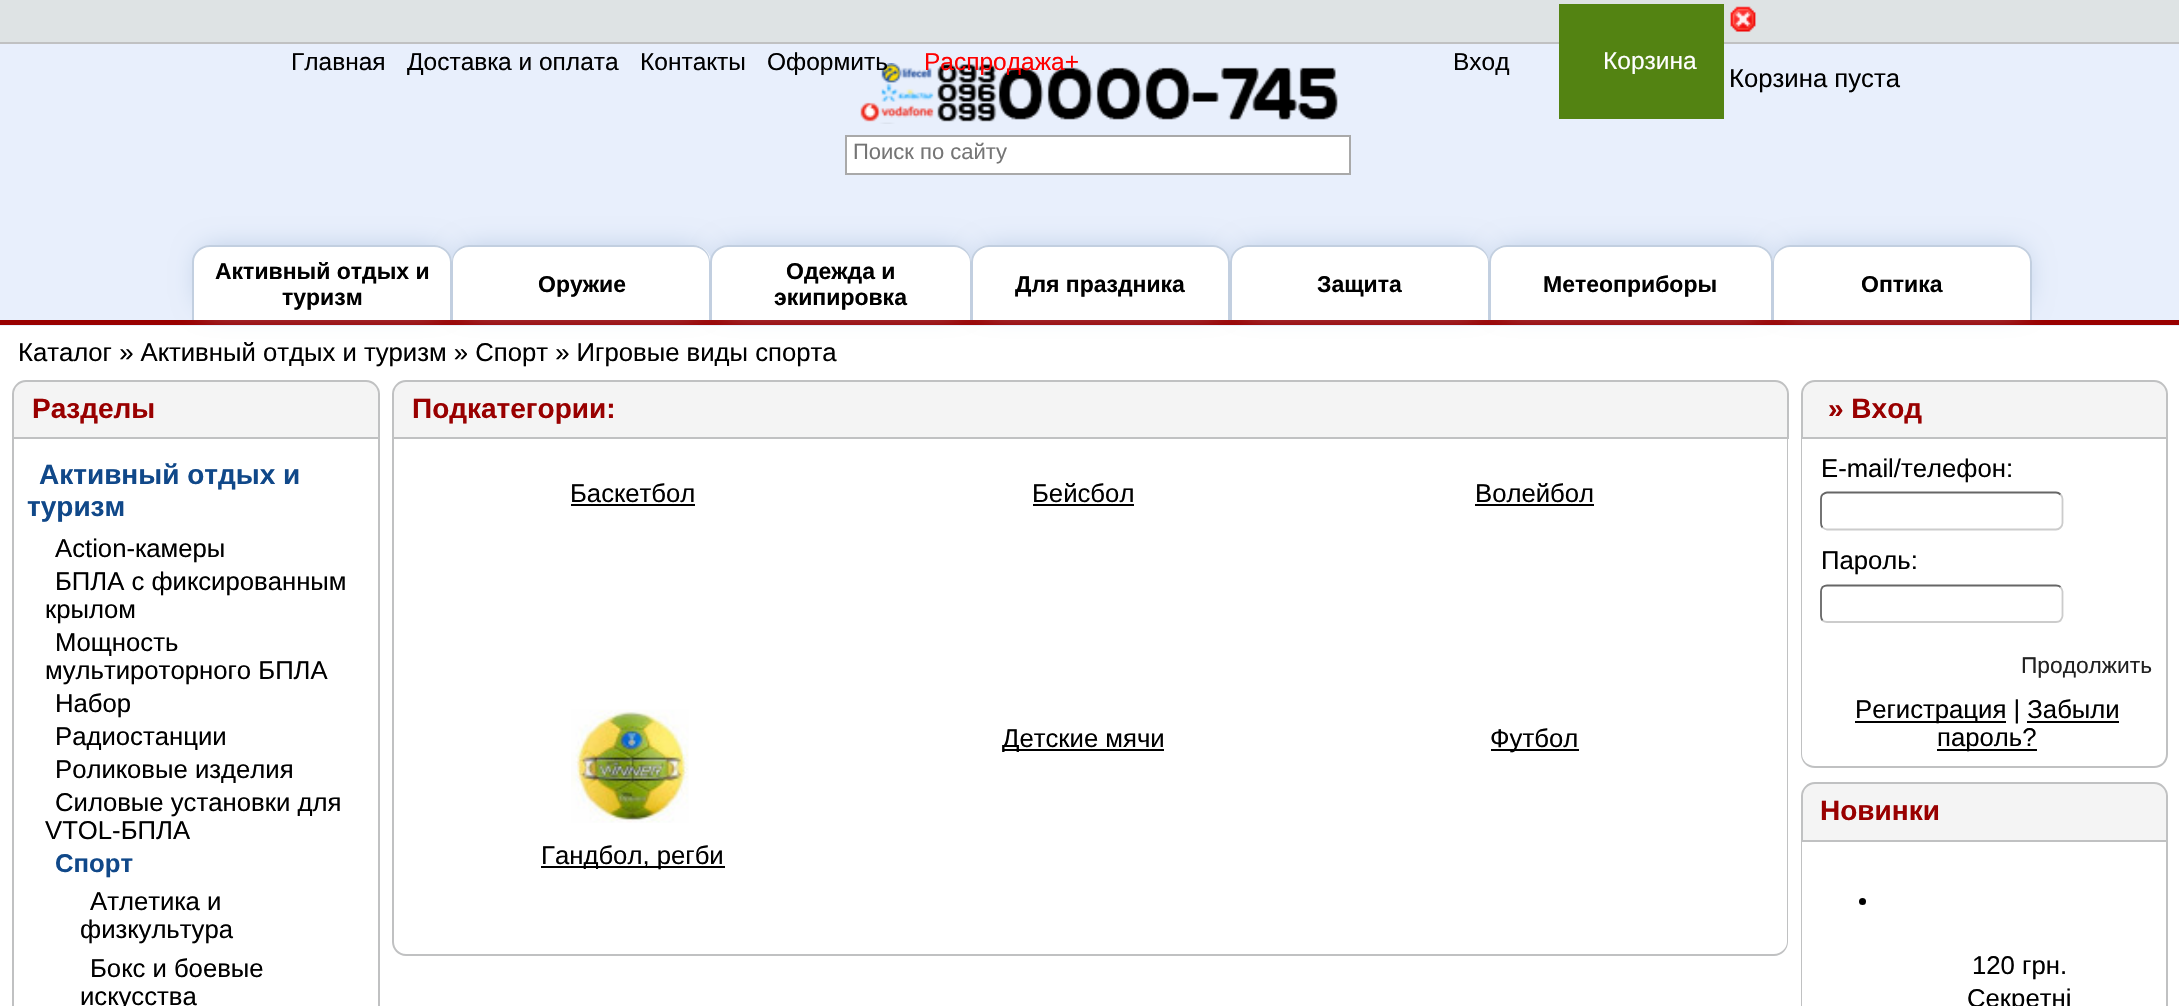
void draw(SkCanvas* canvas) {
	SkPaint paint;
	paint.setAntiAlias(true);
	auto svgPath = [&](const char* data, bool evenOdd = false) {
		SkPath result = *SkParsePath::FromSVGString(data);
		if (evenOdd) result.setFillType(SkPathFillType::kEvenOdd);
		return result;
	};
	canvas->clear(0xffffffff);
	paint.setColor(0xffdee3e4);
	canvas->drawRect(SkRect::MakeXYWH(0, 0, 2179, 42), paint);
	paint.setColor(0xffc0c1c2);
	canvas->drawRect(SkRect::MakeXYWH(0, 42, 2179, 2), paint);
	paint.setColor(0xffe8effc);
	canvas->drawRect(SkRect::MakeXYWH(0, 44, 2179, 282), paint);
	SkFont f1(fontMgr->matchFamilyStyle("Liberation Sans", SkFontStyle::Normal()), 24.5);
	f1.setSubpixel(true);
	paint.setColor(0xff000000);
	canvas->drawString("Главная", 291, 70, f1, paint);
	canvas->drawString("Доставка и оплата", 407, 70, f1, paint);
	canvas->drawString("Контакты", 640, 70, f1, paint);
	canvas->drawImageRect(SkImages::DeferredFromEncodedData(SkData::MakeFromFileName("img2.png")), SkRect::MakeXYWH(860, 63, 478, 61), SkSamplingOptions());
	canvas->drawString("Оформить", 767, 70, f1, paint);
	paint.setColor(0xffff0000);
	canvas->drawString("Распродажа+", 924, 70, f1, paint);
	paint.setColor(0xff000000);
	canvas->drawString("Вход", 1453, 70, f1, paint);
	paint.setColor(0xff538312);
	canvas->drawRect(SkRect::MakeXYWH(1559, 4, 165, 115), paint);
	paint.setColor(0xffffffff);
	canvas->drawString("Корзина", 1603, 69, f1, paint);
	canvas->drawImageRect(SkImages::DeferredFromEncodedData(SkData::MakeFromFileName("img1.png")), SkRect::MakeXYWH(1730, 6, 26, 26), SkSamplingOptions());
	SkFont f2(fontMgr->matchFamilyStyle("Liberation Sans", SkFontStyle::Normal()), 25.7);
	f2.setSubpixel(true);
	paint.setColor(0xff000000);
	canvas->drawString("Корзина пуста", 1729, 87, f2, paint);
	paint.setColor(0xffffffff);
	canvas->drawRect(SkRect::MakeXYWH(846, 136, 504, 38), paint);
	paint.setStroke(true);
	paint.setStrokeWidth(2);
	paint.setColor(0xffa9a9a9);
	canvas->drawRect(SkRect::MakeXYWH(846, 136, 504, 38), paint);
	SkFont f3(fontMgr->matchFamilyStyle("Liberation Sans", SkFontStyle::Normal()), 22);
	f3.setSubpixel(true);
	paint.setStroke(false);
	paint.setColor(0xff757575);
	canvas->drawString("Поиск по сайту", 853, 159, f3, paint);
	paint.setColor(0xff990000);
	canvas->drawRect(SkRect::MakeXYWH(0, 320, 2179, 5), paint);
	paint.setColor(0xffbacce5);
	paint.setMaskFilter(SkMaskFilter::MakeBlur(kNormal_SkBlurStyle, 13));
	canvas->drawRoundRect(SkRect::MakeXYWH(198, 247, 248, 61), 18, 18, paint);
	paint.setMaskFilter(nullptr);
	paint.setMaskFilter(SkMaskFilter::MakeBlur(kNormal_SkBlurStyle, 13));
	canvas->drawRoundRect(SkRect::MakeXYWH(457, 247, 248, 61), 18, 18, paint);
	paint.setMaskFilter(nullptr);
	paint.setColor(0xffffffff);
	canvas->drawPath(svgPath("M211 245H434C444 245 452 253 452 263V320H193V263C193 253 201 245 211 245Z"), paint);
	SkFont f4(fontMgr->matchFamilyStyle("Liberation Sans", SkFontStyle::Bold()), 23);
	f4.setSubpixel(true);
	paint.setColor(0xff000000);
	canvas->drawString("Активный отдых и", 215, 279, f4, paint);
	canvas->drawString("туризм", 282, 305, f4, paint);
	paint.setColor(0xffc2cfe0);
	canvas->drawPath(svgPath("M210 245H434C444 245 452 253 452 262V320H192V262C192 253 200 245 210 245ZM210 247H434C443 247 450 254 450 262V320H194V262C194 254 201 247 210 247Z", true), paint);
	paint.setColor(0xffbacce5);
	paint.setMaskFilter(SkMaskFilter::MakeBlur(kNormal_SkBlurStyle, 13));
	canvas->drawRoundRect(SkRect::MakeXYWH(716, 247, 250, 61), 18, 18, paint);
	paint.setMaskFilter(nullptr);
	paint.setColor(0xffffffff);
	canvas->drawPath(svgPath("M470 245H693C703 245 711 253 711 263V320H452V263C452 253 460 245 470 245Z"), paint);
	paint.setColor(0xff000000);
	canvas->drawString("Оружие", 538, 292, f4, paint);
	paint.setColor(0xffc2cfe0);
	canvas->drawPath(svgPath("M469 245H693C703 245 710 253 710 262V320H452V262C452 253 459 245 469 245ZM469 247H693C702 247 709 254 709 262V320H453V262C453 254 460 247 469 247Z", true), paint);
	paint.setColor(0xffbacce5);
	paint.setMaskFilter(SkMaskFilter::MakeBlur(kNormal_SkBlurStyle, 13));
	canvas->drawRoundRect(SkRect::MakeXYWH(977, 247, 248, 61), 18, 18, paint);
	paint.setMaskFilter(nullptr);
	paint.setColor(0xffffffff);
	canvas->drawPath(svgPath("M729 245H953C963 245 971 253 971 263V320H711V263C711 253 719 245 729 245Z"), paint);
	paint.setColor(0xff000000);
	canvas->drawString("Одежда и", 786, 279, f4, paint);
	canvas->drawString("экипировка", 774, 305, f4, paint);
	paint.setColor(0xffc2cfe0);
	canvas->drawPath(svgPath("M728 245H954C963 245 971 253 971 262V320H710V262C710 253 718 245 728 245ZM728 247H954C962 247 970 254 970 262V320H712V262C712 254 719 247 728 247Z", true), paint);
	paint.setColor(0xffbacce5);
	paint.setMaskFilter(SkMaskFilter::MakeBlur(kNormal_SkBlurStyle, 13));
	canvas->drawRoundRect(SkRect::MakeXYWH(1236, 247, 248, 61), 18, 18, paint);
	paint.setMaskFilter(nullptr);
	paint.setColor(0xffffffff);
	canvas->drawPath(svgPath("M989 245H1212C1222 245 1230 253 1230 263V320H971V263C971 253 979 245 989 245Z"), paint);
	paint.setColor(0xff000000);
	canvas->drawString("Для праздника", 1015, 292, f4, paint);
	paint.setColor(0xffc2cfe0);
	canvas->drawPath(svgPath("M989 245H1213C1222 245 1230 253 1230 262V320H971V262C971 253 979 245 989 245ZM989 247H1213C1221 247 1228 254 1228 262V320H973V262C973 254 980 247 989 247Z", true), paint);
	paint.setColor(0xffbacce5);
	paint.setMaskFilter(SkMaskFilter::MakeBlur(kNormal_SkBlurStyle, 13));
	canvas->drawRoundRect(SkRect::MakeXYWH(1495, 247, 273, 61), 18, 18, paint);
	paint.setMaskFilter(nullptr);
	paint.setColor(0xffffffff);
	canvas->drawPath(svgPath("M1248 245H1471C1481 245 1489 253 1489 263V320H1230V263C1230 253 1238 245 1248 245Z"), paint);
	paint.setColor(0xff000000);
	canvas->drawString("Защита", 1317, 292, f4, paint);
	paint.setColor(0xffc2cfe0);
	canvas->drawPath(svgPath("M1248 245H1472C1481 245 1489 253 1489 262V320H1230V262C1230 253 1238 245 1248 245ZM1248 247H1472C1480 247 1488 254 1488 262V320H1232V262C1232 254 1239 247 1248 247Z", true), paint);
	paint.setColor(0xffbacce5);
	paint.setMaskFilter(SkMaskFilter::MakeBlur(kNormal_SkBlurStyle, 13));
	canvas->drawRoundRect(SkRect::MakeXYWH(1778, 247, 249, 61), 18, 18, paint);
	paint.setMaskFilter(nullptr);
	paint.setColor(0xffffffff);
	canvas->drawPath(svgPath("M1507 245H1755C1765 245 1773 253 1773 263V320H1489V263C1489 253 1497 245 1507 245Z"), paint);
	paint.setColor(0xff000000);
	canvas->drawString("Метеоприборы", 1543, 292, f4, paint);
	paint.setColor(0xffc2cfe0);
	canvas->drawPath(svgPath("M1507 245H1755C1765 245 1773 253 1773 262V320H1489V262C1489 253 1497 245 1507 245ZM1507 247H1755C1764 247 1771 254 1771 262V320H1491V262C1491 254 1498 247 1507 247Z", true), paint);
	paint.setColor(0xffffffff);
	canvas->drawPath(svgPath("M1791 245H2014C2024 245 2032 253 2032 263V320H1773V263C1773 253 1781 245 1791 245Z"), paint);
	paint.setColor(0xff000000);
	canvas->drawString("Оптика", 1861, 292, f4, paint);
	paint.setColor(0xffc2cfe0);
	canvas->drawPath(svgPath("M1790 245H2014C2024 245 2032 253 2032 262V320H1773V262C1773 253 1781 245 1790 245ZM1790 247H2014C2023 247 2030 254 2030 262V320H1774V262C1774 254 1782 247 1790 247Z", true), paint);
	paint.setColor(0xff000000);
	canvas->drawString("Каталог » Активный отдых и туризм » Спорт » Игровые виды спорта", 18, 361, f2, paint);
	paint.setColor(0xfff4f4f4);
	canvas->drawPath(svgPath("M26 381H366C373 381 379 387 379 394V438H13V394C13 387 19 381 26 381Z"), paint);
	paint.setStroke(true);
	paint.setColor(0xffc0c1c2);
	canvas->drawPath(svgPath("M26 381H366C373 381 379 387 379 394V438H13V394C13 387 19 381 26 381Z"), paint);
	SkFont f5(fontMgr->matchFamilyStyle("Liberation Sans", SkFontStyle::Bold()), 28);
	f5.setSubpixel(true);
	paint.setStroke(false);
	paint.setColor(0xff990000);
	canvas->drawString("Разделы", 32, 418, f5, paint);
	paint.setColor(0xffc0c1c2);
	canvas->drawPath(svgPath("M12 439H380V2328C380 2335 373 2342 366 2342H26C19 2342 12 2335 12 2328ZM14 439H378V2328C378 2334 373 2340 366 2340H26C19 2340 14 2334 14 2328Z", true), paint);
	paint.setColor(0xff104889);
	canvas->drawString("Активный отдых и", 39, 484, f5, paint);
	canvas->drawString("туризм", 27, 516, f5, paint);
	paint.setColor(0xff000000);
	canvas->drawString("Action-камеры", 55, 557, f2, paint);
	canvas->drawString("БПЛА с фиксированным", 55, 590, f2, paint);
	canvas->drawString("крылом", 45, 618, f2, paint);
	canvas->drawString("Мощность", 55, 651, f2, paint);
	canvas->drawString("мультироторного БПЛА", 45, 679, f2, paint);
	canvas->drawString("Набор", 55, 712, f2, paint);
	canvas->drawString("Радиостанции", 55, 745, f2, paint);
	canvas->drawString("Роликовые изделия", 55, 778, f2, paint);
	canvas->drawString("Силовые установки для", 55, 811, f2, paint);
	canvas->drawString("VTOL-БПЛА", 45, 839, f2, paint);
	SkFont f6(fontMgr->matchFamilyStyle("Liberation Sans", SkFontStyle::Bold()), 25.7);
	f6.setSubpixel(true);
	paint.setColor(0xff104889);
	canvas->drawString("Спорт", 55, 872, f6, paint);
	paint.setColor(0xff000000);
	canvas->drawString("Атлетика и", 90, 910, f2, paint);
	canvas->drawString("физкультура", 80, 938, f2, paint);
	canvas->drawString("Бокс и боевые", 90, 977, f2, paint);
	canvas->drawString("искусства", 80, 1005, f2, paint);
	paint.setColor(0xfff4f4f4);
	canvas->drawPath(svgPath("M406 381H1775C1782 381 1788 387 1788 394V438H393V394C393 387 399 381 406 381Z"), paint);
	paint.setStroke(true);
	paint.setColor(0xffc0c1c2);
	canvas->drawPath(svgPath("M406 381H1775C1782 381 1788 387 1788 394V438H393V394C393 387 399 381 406 381Z"), paint);
	paint.setStroke(false);
	paint.setColor(0xff990000);
	canvas->drawString("Подкатегории:", 412, 418, f5, paint);
	paint.setColor(0xffc0c1c2);
	canvas->drawPath(svgPath("M392 439H1788V942C1788 949 1782 956 1774 956H406C398 956 392 949 392 942ZM394 439H1787V942C1787 948 1781 954 1774 954H406C399 954 394 948 394 942Z", true), paint);
	paint.setColor(0xff000000);
	canvas->drawString("Баскетбол", 570, 502, f2, paint);
	canvas->drawRect(SkRect::MakeXYWH(571, 504, 124, 2), paint);
	canvas->drawString("Бейсбол", 1032, 502, f2, paint);
	canvas->drawRect(SkRect::MakeXYWH(1033, 504, 101, 2), paint);
	canvas->drawString("Волейбол", 1475, 502, f2, paint);
	canvas->drawRect(SkRect::MakeXYWH(1475, 504, 119, 2), paint);
	canvas->drawRect(SkRect::MakeXYWH(1003, 749, 161, 2), paint);
	canvas->drawString("Детские мячи", 1002, 747, f2, paint);
	canvas->drawRect(SkRect::MakeXYWH(1491, 749, 88, 2), paint);
	canvas->drawString("Футбол", 1490, 747, f2, paint);
	canvas->drawImageRect(SkImages::DeferredFromEncodedData(SkData::MakeFromFileName("img3.png")), SkRect::MakeXYWH(571, 709, 118, 114), SkSamplingOptions());
	canvas->drawRect(SkRect::MakeXYWH(541, 866, 184, 2), paint);
	canvas->drawString("Гандбол, регби", 541, 864, f2, paint);
	paint.setColor(0xfff4f4f4);
	canvas->drawPath(svgPath("M1815 381H2154C2161 381 2167 387 2167 394V438H1802V394C1802 387 1808 381 1815 381Z"), paint);
	paint.setStroke(true);
	paint.setColor(0xffc0c1c2);
	canvas->drawPath(svgPath("M1815 381H2154C2161 381 2167 387 2167 394V438H1802V394C1802 387 1808 381 1815 381Z"), paint);
	paint.setStroke(false);
	paint.setColor(0xff990000);
	canvas->drawString("» Вход", 1828, 418, f5, paint);
	paint.setColor(0xffc0c1c2);
	canvas->drawPath(svgPath("M1801 439H2168V754C2168 762 2162 768 2154 768H1815C1807 768 1801 762 1801 754ZM1802 439H2166V754C2166 761 2161 766 2154 766H1815C1808 766 1802 761 1802 754Z", true), paint);
	paint.setColor(0xff000000);
	canvas->drawString("E-mail/телефон:", 1821, 477, f2, paint);
	paint.setStroke(true);
	paint.setStrokeWidth(1.8);
	paint.setColor(0xffcccccc);
	canvas->drawPath(svgPath("M2060.5 494.5C2061.5 495.5 2062.5 497 2062.5 499V523C2062.5 525 2061.5 526.5 2060.5 527.5C2059.5 528.5 2058 529.5 2056 529.5H1827C1825.5 529.5 1824 528.5 1822.5 527.5"), paint);
	paint.setColor(0xff666666);
	canvas->drawPath(svgPath("M1822.5 527.5C1821.5 526.5 1821 525 1821 523V499C1821 497 1821.5 495.5 1822.5 494.5C1824 493.5 1825.5 492.5 1827 492.5H2056C2058 492.5 2059.5 493.5 2060.5 494.5"), paint);
	paint.setStroke(false);
	paint.setColor(0xff000000);
	canvas->drawString("Пароль:", 1821, 569, f2, paint);
	paint.setStroke(true);
	paint.setColor(0xffcccccc);
	canvas->drawPath(svgPath("M2060.5 587C2061.5 588.5 2062.5 590 2062.5 591.5V616C2062.5 617.5 2061.5 619 2060.5 620.5C2059.5 621.5 2058 622 2056 622H1827C1825.5 622 1824 621.5 1822.5 620.5"), paint);
	paint.setColor(0xff666666);
	canvas->drawPath(svgPath("M1822.5 620.5C1821.5 619 1821 617.5 1821 616V591.5C1821 590 1821.5 588.5 1822.5 587C1824 586 1825.5 585.5 1827 585.5H2056C2058 585.5 2059.5 586 2060.5 587"), paint);
	SkFont f7(fontMgr->matchFamilyStyle("Liberation Sans", SkFontStyle::Normal()), 22.75);
	f7.setSubpixel(true);
	paint.setStroke(false);
	paint.setColor(0xff222222);
	canvas->drawString("Продолжить", 2021, 673, f7, paint);
	paint.setColor(0xff000000);
	canvas->drawRect(SkRect::MakeXYWH(1855, 721, 151, 2), paint);
	canvas->drawString("Регистрация | Забыли", 1855, 718, f2, paint);
	canvas->drawRect(SkRect::MakeXYWH(1937, 749, 100, 2), paint);
	canvas->drawString("пароль?", 1937, 746, f2, paint);
	canvas->drawRect(SkRect::MakeXYWH(2027, 721, 92, 2), paint);
	paint.setColor(0xfff4f4f4);
	canvas->drawPath(svgPath("M1815 783H2154C2161 783 2167 789 2167 796V841H1802V796C1802 789 1808 783 1815 783Z"), paint);
	paint.setStroke(true);
	paint.setStrokeWidth(2);
	paint.setColor(0xffc0c1c2);
	canvas->drawPath(svgPath("M1815 783H2154C2161 783 2167 789 2167 796V841H1802V796C1802 789 1808 783 1815 783Z"), paint);
	paint.setStroke(false);
	paint.setColor(0xff990000);
	canvas->drawString("Новинки", 1820, 820, f5, paint);
	paint.setColor(0xffc0c1c2);
	canvas->drawPath(svgPath("M1801 842H2168V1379C2168 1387 2162 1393 2154 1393H1815C1807 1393 1801 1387 1801 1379ZM1802 842H2166V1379C2166 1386 2161 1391 2154 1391H1815C1808 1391 1802 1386 1802 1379Z", true), paint);
	paint.setColor(0xff000000);
	canvas->drawCircle(1862.5, 901.5, 3.5, paint);
	canvas->drawString("120 грн.", 1972, 974, f2, paint);
	canvas->drawString("Секретні", 1967, 1007, f2, paint);
}
